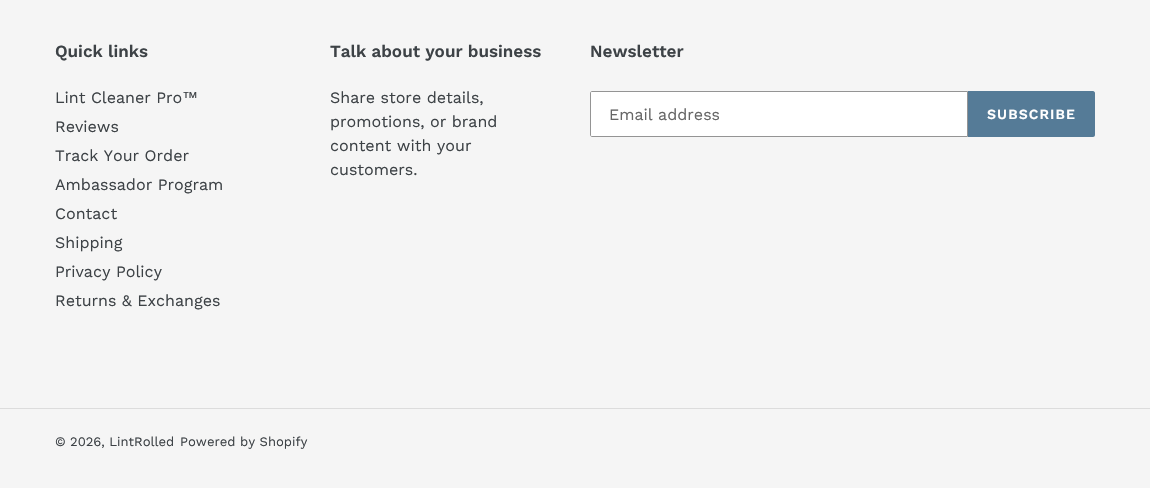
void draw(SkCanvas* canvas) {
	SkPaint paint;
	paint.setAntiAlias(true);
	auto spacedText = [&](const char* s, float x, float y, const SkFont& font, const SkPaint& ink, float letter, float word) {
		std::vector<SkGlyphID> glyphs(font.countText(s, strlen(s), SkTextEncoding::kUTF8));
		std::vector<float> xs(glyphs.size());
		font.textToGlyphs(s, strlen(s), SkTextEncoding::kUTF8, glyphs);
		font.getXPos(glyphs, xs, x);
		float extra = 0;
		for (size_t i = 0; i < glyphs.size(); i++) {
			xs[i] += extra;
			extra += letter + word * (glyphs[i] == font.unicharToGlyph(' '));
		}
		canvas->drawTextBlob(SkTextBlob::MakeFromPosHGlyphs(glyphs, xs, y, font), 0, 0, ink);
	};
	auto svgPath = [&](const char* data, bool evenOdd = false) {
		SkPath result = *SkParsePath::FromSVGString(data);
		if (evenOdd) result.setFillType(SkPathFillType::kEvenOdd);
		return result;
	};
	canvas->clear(0xfff5f5f5);
	SkFont f1(fontMgr->matchFamilyStyle("Work Sans", SkFontStyle(600, SkFontStyle::kNormal_Width, SkFontStyle::kUpright_Slant)), 17);
	f1.setSubpixel(true);
	paint.setColor(0xff3d4246);
	canvas->drawString("Quick links", 55, 57, f1, paint);
	SkFont f2(fontMgr->matchFamilyStyle("Work Sans", SkFontStyle::Normal()), 16);
	f2.setSubpixel(true);
	canvas->drawString("Lint Cleaner Pro", 55, 103, f2, paint);
	SkFont f3(fontMgr->matchFamilyStyle("Liberation Sans", SkFontStyle::Normal()), 16);
	f3.setSubpixel(true);
	canvas->drawString("™", 182, 103, f3, paint);
	canvas->drawString("Reviews", 55, 132, f2, paint);
	canvas->drawString("Track Your Order", 55, 161, f2, paint);
	canvas->drawString("Ambassador Program", 55, 190, f2, paint);
	canvas->drawString("Contact", 55, 219, f2, paint);
	canvas->drawString("Shipping", 55, 248, f2, paint);
	canvas->drawString("Privacy Policy", 55, 277, f2, paint);
	canvas->drawString("Returns & Exchanges", 55, 306, f2, paint);
	canvas->drawString("Talk about your business", 330, 57, f1, paint);
	canvas->drawString("Share store details,", 330, 103, f2, paint);
	canvas->drawString("promotions, or brand", 330, 127, f2, paint);
	canvas->drawString("content with your", 330, 151, f2, paint);
	canvas->drawString("customers.", 330, 175, f2, paint);
	canvas->drawString("Newsletter", 590, 57, f1, paint);
	paint.setColor(0xffffffff);
	canvas->drawPath(svgPath("M592 91.5H967.5V136.5H592C591 136.5 590.5 136 590.5 135V93C590.5 92 591 91.5 592 91.5Z"), paint);
	paint.setStroke(true);
	paint.setStrokeWidth(1);
	paint.setColor(0xff949494);
	canvas->drawPath(svgPath("M592 91.5H967.5V136.5H592C591 136.5 590.5 136 590.5 135V93C590.5 92 591 91.5 592 91.5Z"), paint);
	paint.setStroke(false);
	paint.setColor(0xff666666);
	canvas->drawString("Email address", 609, 120, f2, paint);
	paint.setColor(0xff557b97);
	canvas->drawPath(svgPath("M968 91H1093C1094 91 1095 92 1095 93V135C1095 136 1094 137 1093 137H968Z"), paint);
	SkFont f4(fontMgr->matchFamilyStyle("Work Sans", SkFontStyle(600, SkFontStyle::kNormal_Width, SkFontStyle::kUpright_Slant)), 14);
	f4.setSubpixel(true);
	paint.setColor(0xffffffff);
	spacedText("SUBSCRIBE", 987, 119, f4, paint, 1.1, 0);
	paint.setColor(0xffdcdcdc);
	canvas->drawRect(SkRect::MakeXYWH(0, 408, 1150, 1), paint);
	SkFont f5(fontMgr->matchFamilyStyle("Work Sans", SkFontStyle::Normal()), 13);
	f5.setSubpixel(true);
	paint.setColor(0xff3d4246);
	canvas->drawString("© 2026, LintRolled", 55, 446, f5, paint);
	canvas->drawString("Powered by Shopify", 180, 446, f5, paint);
}
